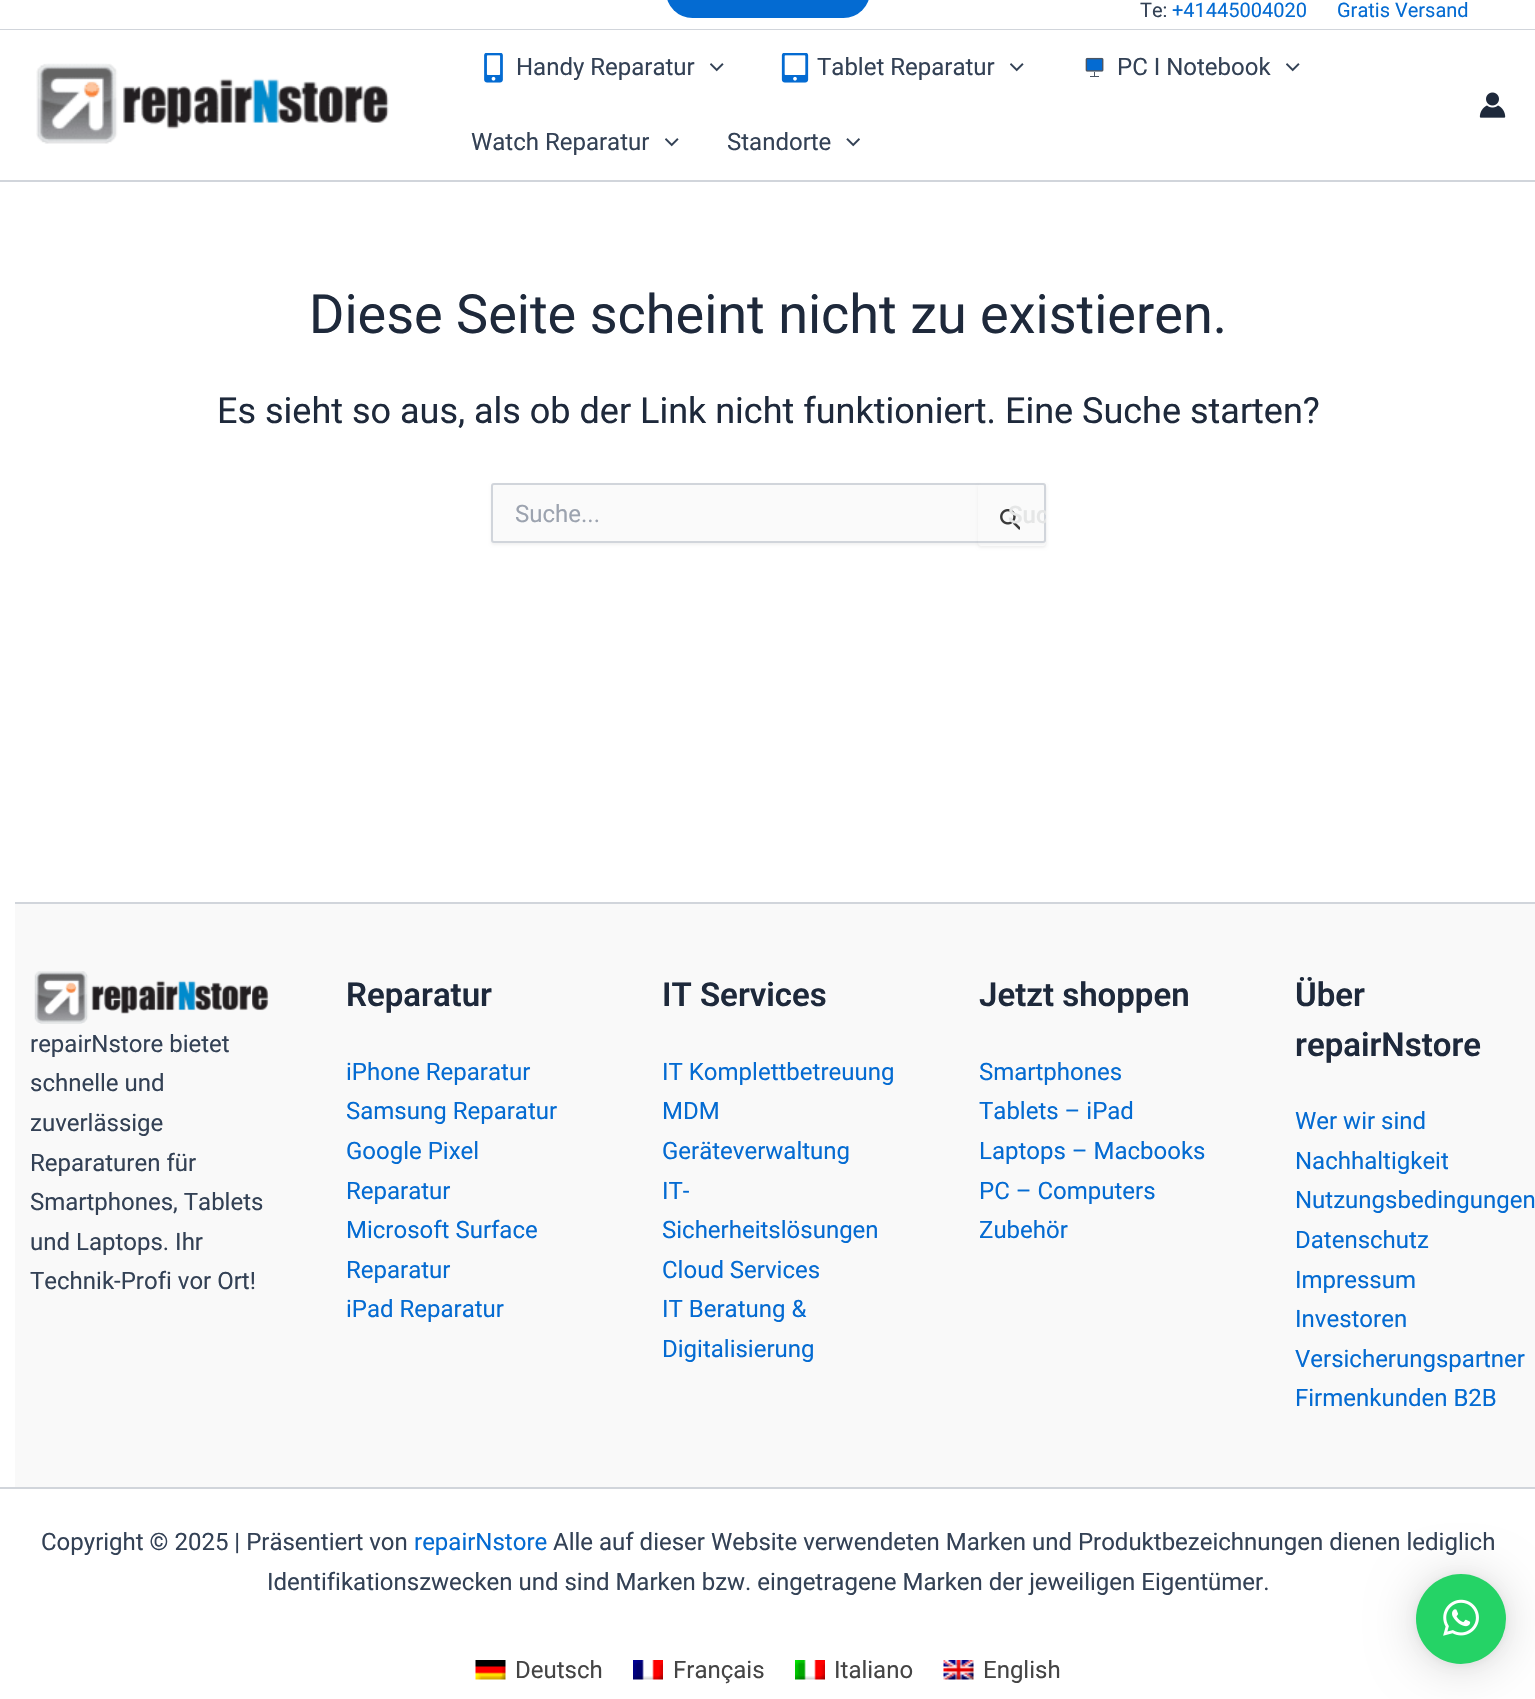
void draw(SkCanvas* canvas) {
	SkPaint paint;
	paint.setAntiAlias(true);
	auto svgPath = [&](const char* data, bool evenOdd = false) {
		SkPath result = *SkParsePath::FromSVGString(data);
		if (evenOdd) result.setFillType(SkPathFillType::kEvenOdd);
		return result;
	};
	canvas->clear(0xffffffff);
	paint.setColor(0xffd1d5db);
	canvas->drawRect(SkRect::MakeXYWH(0, 29, 1535, 1), paint);
	paint.setColor(0xff046bd2);
	canvas->drawRoundRect(SkRect::MakeXYWH(666, -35, 204, 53), 34.5, 34.5, paint);
	SkFont f1(fontMgr->matchFamilyStyle("Roboto", SkFontStyle::Normal()), 20);
	f1.setSubpixel(true);
	paint.setColor(0xff334155);
	canvas->drawString("Te:", 1140, 17, f1, paint);
	paint.setColor(0xff046bd2);
	canvas->drawString("+41445004020", 1172, 17, f1, paint);
	canvas->drawString("Gratis Versand", 1337, 17, f1, paint);
	paint.setColor(0xffd1d5db);
	canvas->drawRect(SkRect::MakeXYWH(0, 180, 1535, 2), paint);
	canvas->drawImageRect(SkImages::DeferredFromEncodedData(SkData::MakeFromFileName("img1.png")), SkRect::MakeXYWH(36, 63, 353, 81), SkSamplingOptions());
	canvas->drawImageRect(SkImages::DeferredFromEncodedData(SkData::MakeFromFileName("img2.png")), SkRect::MakeXYWH(484, 53, 19, 30), SkSamplingOptions());
	SkFont f2(fontMgr->matchFamilyStyle("Roboto", SkFontStyle::Normal()), 24);
	f2.setSubpixel(true);
	paint.setColor(0xff334155);
	canvas->drawString("Handy Reparatur", 516, 75, f2, paint);
	canvas->drawImageRect(SkImages::DeferredFromEncodedData(SkData::MakeFromFileName("img3.png")), SkRect::MakeXYWH(710, 63, 14, 9), SkSamplingOptions());
	canvas->drawImageRect(SkImages::DeferredFromEncodedData(SkData::MakeFromFileName("img4.png")), SkRect::MakeXYWH(781, 53, 28, 30), SkSamplingOptions());
	canvas->drawString("Tablet Reparatur", 817, 75, f2, paint);
	canvas->drawImageRect(SkImages::DeferredFromEncodedData(SkData::MakeFromFileName("img3.png")), SkRect::MakeXYWH(1010, 63, 14, 9), SkSamplingOptions());
	canvas->drawImageRect(SkImages::DeferredFromEncodedData(SkData::MakeFromFileName("img5.png")), SkRect::MakeXYWH(1085, 57, 19, 20), SkSamplingOptions());
	canvas->drawString("PC I Notebook", 1117, 75, f2, paint);
	canvas->drawImageRect(SkImages::DeferredFromEncodedData(SkData::MakeFromFileName("img3.png")), SkRect::MakeXYWH(1286, 63, 14, 9), SkSamplingOptions());
	canvas->drawString("Watch Reparatur", 471, 150, f2, paint);
	canvas->drawImageRect(SkImages::DeferredFromEncodedData(SkData::MakeFromFileName("img3.png")), SkRect::MakeXYWH(665, 138, 14, 9), SkSamplingOptions());
	canvas->drawString("Standorte", 727, 150, f2, paint);
	canvas->drawImageRect(SkImages::DeferredFromEncodedData(SkData::MakeFromFileName("img6.png")), SkRect::MakeXYWH(846, 138, 14, 9), SkSamplingOptions());
	canvas->drawImageRect(SkImages::DeferredFromEncodedData(SkData::MakeFromFileName("img7.png")), SkRect::MakeXYWH(1479, 92, 27, 26), SkSamplingOptions());
	SkFont f3(fontMgr->matchFamilyStyle("Roboto", SkFontStyle::Normal()), 54);
	f3.setSubpixel(true);
	paint.setColor(0xff1e293b);
	canvas->drawString("Diese Seite scheint nicht zu existieren.", 309, 333, f3, paint);
	SkFont f4(fontMgr->matchFamilyStyle("Roboto", SkFontStyle::Normal()), 36);
	f4.setSubpixel(true);
	canvas->drawString("Es sieht so aus, als ob der Link nicht funktioniert. Eine Suche starten?", 217, 423, f4, paint);
	paint.setColor(0x0d000000);
	paint.setMaskFilter(SkMaskFilter::MakeBlur(kNormal_SkBlurStyle, 1.5));
	canvas->drawRoundRect(SkRect::MakeXYWH(491, 485, 555, 60), 3, 3, paint);
	paint.setMaskFilter(nullptr);
	paint.setColor(0xfffafafa);
	canvas->drawRoundRect(SkRect::MakeXYWH(492, 484, 553, 58), 2, 2, paint);
	paint.setStroke(true);
	paint.setStrokeWidth(2);
	paint.setColor(0xffd1d5db);
	canvas->drawRoundRect(SkRect::MakeXYWH(492, 484, 553, 58), 2, 2, paint);
	paint.setStroke(false);
	paint.setColor(0xff9ca3af);
	canvas->drawString("Suche...", 515, 522, f2, paint);
	canvas->drawImageRect(SkImages::DeferredFromEncodedData(SkData::MakeFromFileName("img8.png")), SkRect::MakeXYWH(1000, 509, 20, 21), SkSamplingOptions());
	canvas->save();
	canvas->clipPath(svgPath("M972 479H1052V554H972ZM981 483H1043C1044.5 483 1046 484.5 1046 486V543C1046 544.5 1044.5 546 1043 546H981C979.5 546 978 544.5 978 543V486C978 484.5 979.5 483 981 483Z", true), true);
	paint.setColor(0x0d000000);
	paint.setMaskFilter(SkMaskFilter::MakeBlur(kNormal_SkBlurStyle, 1.5));
	canvas->drawRoundRect(SkRect::MakeXYWH(978, 485, 68, 63), 3, 3, paint);
	paint.setMaskFilter(nullptr);
	canvas->restore();
	canvas->save();
	canvas->clipPath(svgPath("M981 483H1043C1044.5 483 1046 484.5 1046 486V543C1046 544.5 1044.5 546 1043 546H981C979.5 546 978 544.5 978 543V486C978 484.5 979.5 483 981 483Z"), true);
	SkFont f5(fontMgr->matchFamilyStyle("Roboto", SkFontStyle(500, SkFontStyle::kNormal_Width, SkFontStyle::kUpright_Slant)), 24);
	f5.setSubpixel(true);
	paint.setColor(0xffe5e6e6);
	canvas->drawString("Suc", 1008, 523, f5, paint);
	canvas->restore();
	paint.setColor(0xfff9f9f9);
	canvas->drawRect(SkRect::MakeXYWH(15, 904, 1520, 583), paint);
	paint.setColor(0xffd1d5db);
	canvas->drawRect(SkRect::MakeXYWH(15, 902, 1520, 2), paint);
	canvas->drawImageRect(SkImages::DeferredFromEncodedData(SkData::MakeFromFileName("img9.png")), SkRect::MakeXYWH(34, 971, 235, 53), SkSamplingOptions());
	paint.setColor(0xff334155);
	canvas->drawString("repairNstore bietet", 30, 1052, f2, paint);
	canvas->drawString("schnelle und", 30, 1091, f2, paint);
	canvas->drawString("zuverlässige", 30, 1131, f2, paint);
	canvas->drawString("Reparaturen für", 30, 1171, f2, paint);
	canvas->drawString("Smartphones, Tablets", 30, 1210, f2, paint);
	canvas->drawString("und Laptops. Ihr", 30, 1250, f2, paint);
	canvas->drawString("Technik-Profi vor Ort!", 30, 1289, f2, paint);
	SkFont f6(fontMgr->matchFamilyStyle("Roboto", SkFontStyle(600, SkFontStyle::kNormal_Width, SkFontStyle::kUpright_Slant)), 33);
	f6.setSubpixel(true);
	paint.setColor(0xff1e293b);
	canvas->drawString("Reparatur", 346, 1006, f6, paint);
	paint.setColor(0xff046bd2);
	canvas->drawString("iPhone Reparatur", 346, 1080, f2, paint);
	canvas->drawString("Samsung Reparatur", 346, 1119, f2, paint);
	canvas->drawString("Google Pixel", 346, 1159, f2, paint);
	canvas->drawString("Reparatur", 346, 1199, f2, paint);
	canvas->drawString("Microsoft Surface", 346, 1238, f2, paint);
	canvas->drawString("Reparatur", 346, 1278, f2, paint);
	canvas->drawString("iPad Reparatur", 346, 1317, f2, paint);
	paint.setColor(0xff1e293b);
	canvas->drawString("IT Services", 662, 1006, f6, paint);
	paint.setColor(0xff046bd2);
	canvas->drawString("IT Komplettbetreuung", 662, 1080, f2, paint);
	canvas->drawString("MDM", 662, 1119, f2, paint);
	canvas->drawString("Geräteverwaltung", 662, 1159, f2, paint);
	canvas->drawString("IT-", 662, 1199, f2, paint);
	canvas->drawString("Sicherheitslösungen", 662, 1238, f2, paint);
	canvas->drawString("Cloud Services", 662, 1278, f2, paint);
	canvas->drawString("IT Beratung &", 662, 1317, f2, paint);
	canvas->drawString("Digitalisierung", 662, 1357, f2, paint);
	paint.setColor(0xff1e293b);
	canvas->drawString("Jetzt shoppen", 979, 1006, f6, paint);
	paint.setColor(0xff046bd2);
	canvas->drawString("Smartphones", 979, 1080, f2, paint);
	canvas->drawString("Tablets – iPad", 979, 1119, f2, paint);
	canvas->drawString("Laptops – Macbooks", 979, 1159, f2, paint);
	canvas->drawString("PC – Computers", 979, 1199, f2, paint);
	canvas->drawString("Zubehör", 979, 1238, f2, paint);
	paint.setColor(0xff1e293b);
	canvas->drawString("Über", 1295, 1006, f6, paint);
	canvas->drawString("repairNstore", 1295, 1056, f6, paint);
	paint.setColor(0xff046bd2);
	canvas->drawString("Wer wir sind", 1295, 1129, f2, paint);
	canvas->drawString("Nachhaltigkeit", 1295, 1169, f2, paint);
	canvas->drawString("Nutzungsbedingungen", 1295, 1208, f2, paint);
	canvas->drawString("Datenschutz", 1295, 1248, f2, paint);
	canvas->drawString("Impressum", 1295, 1288, f2, paint);
	canvas->drawString("Investoren", 1295, 1327, f2, paint);
	canvas->drawString("Versicherungspartner", 1295, 1367, f2, paint);
	canvas->drawString("Firmenkunden B2B", 1295, 1406, f2, paint);
	paint.setColor(0xffd1d5db);
	canvas->drawRect(SkRect::MakeXYWH(0, 1487, 1535, 2), paint);
	paint.setColor(0xff334155);
	canvas->drawString("Copyright © 2025 | Präsentiert von", 41, 1550, f2, paint);
	paint.setColor(0xff046bd2);
	canvas->drawString("repairNstore", 414, 1550, f2, paint);
	paint.setColor(0xff334155);
	canvas->drawString("Alle auf dieser Website verwendeten Marken und Produktbezeichnungen dienen lediglich", 553, 1550, f2, paint);
	canvas->drawString("Identifikationszwecken und sind Marken bzw. eingetragene Marken der jeweiligen Eigentümer.", 267, 1590, f2, paint);
	canvas->drawImageRect(SkImages::DeferredFromEncodedData(SkData::MakeFromFileName("img10.png")), SkRect::MakeXYWH(475, 1660, 31, 20), SkSamplingOptions());
	paint.setColor(0xff444444);
	canvas->drawString("Deutsch", 515, 1678, f2, paint);
	canvas->drawImageRect(SkImages::DeferredFromEncodedData(SkData::MakeFromFileName("img11.png")), SkRect::MakeXYWH(633, 1660, 30, 20), SkSamplingOptions());
	canvas->drawString("Français", 673, 1678, f2, paint);
	canvas->drawImageRect(SkImages::DeferredFromEncodedData(SkData::MakeFromFileName("img12.png")), SkRect::MakeXYWH(795, 1660, 30, 20), SkSamplingOptions());
	canvas->drawString("Italiano", 834, 1678, f2, paint);
	canvas->drawImageRect(SkImages::DeferredFromEncodedData(SkData::MakeFromFileName("img13.png")), SkRect::MakeXYWH(943, 1660, 31, 20), SkSamplingOptions());
	canvas->drawString("English", 983, 1678, f2, paint);
	paint.setColor(0x29000000);
	paint.setMaskFilter(SkMaskFilter::MakeBlur(kNormal_SkBlurStyle, 24));
	canvas->drawRoundRect(SkRect::MakeXYWH(1416, 1577, 90, 90), 45, 45, paint);
	paint.setMaskFilter(nullptr);
	paint.setColor(0x0f000000);
	paint.setMaskFilter(SkMaskFilter::MakeBlur(kNormal_SkBlurStyle, 4.5));
	canvas->drawRoundRect(SkRect::MakeXYWH(1416, 1575, 90, 90), 45, 45, paint);
	paint.setMaskFilter(nullptr);
	paint.setColor(0xff25d366);
	canvas->drawCircle(1461, 1619, 45, paint);
	canvas->drawImageRect(SkImages::DeferredFromEncodedData(SkData::MakeFromFileName("img14.png")), SkRect::MakeXYWH(1443, 1599, 36, 37), SkSamplingOptions());
}
